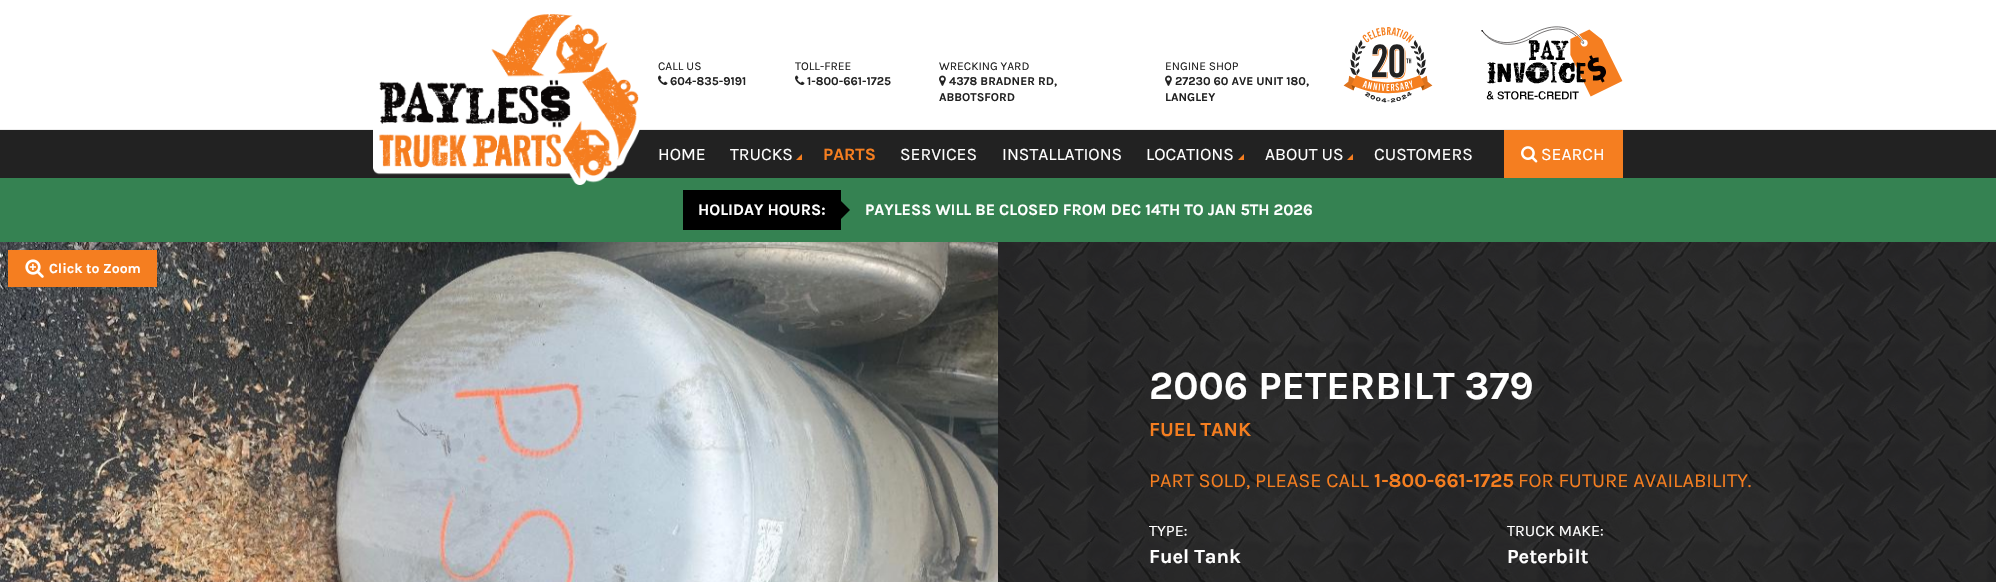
void draw(SkCanvas* canvas) {
	SkPaint paint;
	paint.setAntiAlias(true);
	auto svgPath = [&](const char* data, bool evenOdd = false) {
		SkPath result = *SkParsePath::FromSVGString(data);
		if (evenOdd) result.setFillType(SkPathFillType::kEvenOdd);
		return result;
	};
	canvas->clear(0xff358252);
	paint.setColor(0xffffffff);
	canvas->drawRect(SkRect::MakeXYWH(0, 0, 1996, 129), paint);
	paint.setColor(0xff222222);
	canvas->drawRect(SkRect::MakeXYWH(0, 130, 1996, 48), paint);
	paint.setColor(0xffeeeeee);
	canvas->drawRect(SkRect::MakeXYWH(0, 129, 1996, 1), paint);
	canvas->drawImageRect(SkImages::DeferredFromEncodedData(SkData::MakeFromFileName("img1.png")), SkRect::MakeXYWH(373, 14, 267, 171), SkSamplingOptions());
	SkFont f1(fontMgr->matchFamilyStyle("Karla", SkFontStyle::Normal()), 12);
	f1.setSubpixel(true);
	paint.setColor(0xff222222);
	canvas->drawString("CALL US", 658, 70, f1, paint);
	canvas->drawImageRect(SkImages::DeferredFromEncodedData(SkData::MakeFromFileName("img2.png")), SkRect::MakeXYWH(658, 75, 10, 10), SkSamplingOptions());
	SkFont f2(fontMgr->matchFamilyStyle("Karla", SkFontStyle::Bold()), 12);
	f2.setSubpixel(true);
	canvas->drawString("604-835-9191", 670, 85, f2, paint);
	canvas->drawString("TOLL-FREE", 795, 70, f1, paint);
	canvas->drawImageRect(SkImages::DeferredFromEncodedData(SkData::MakeFromFileName("img2.png")), SkRect::MakeXYWH(795, 75, 10, 10), SkSamplingOptions());
	canvas->drawString("1-800-661-1725", 807, 85, f2, paint);
	canvas->drawString("WRECKING YARD", 939, 70, f1, paint);
	canvas->drawImageRect(SkImages::DeferredFromEncodedData(SkData::MakeFromFileName("img3.png")), SkRect::MakeXYWH(939, 75, 7, 11), SkSamplingOptions());
	canvas->drawString("4378 BRADNER RD,", 949, 85, f2, paint);
	canvas->drawString("ABBOTSFORD", 939, 101, f2, paint);
	canvas->drawString("ENGINE SHOP", 1165, 70, f1, paint);
	canvas->drawImageRect(SkImages::DeferredFromEncodedData(SkData::MakeFromFileName("img3.png")), SkRect::MakeXYWH(1165, 75, 7, 11), SkSamplingOptions());
	canvas->drawString("27230 60 AVE UNIT 180,", 1175, 85, f2, paint);
	canvas->drawString("LANGLEY", 1165, 101, f2, paint);
	canvas->drawImageRect(SkImages::DeferredFromEncodedData(SkData::MakeFromFileName("img4.png")), SkRect::MakeXYWH(1343, 27, 90, 76), SkSamplingOptions());
	canvas->drawImageRect(SkImages::DeferredFromEncodedData(SkData::MakeFromFileName("img5.png")), SkRect::MakeXYWH(1481, 26, 142, 74), SkSamplingOptions());
	SkFont f3(fontMgr->matchFamilyStyle("Karla", SkFontStyle::Normal()), 17.5);
	f3.setSubpixel(true);
	paint.setColor(0xffffffff);
	canvas->drawString("HOME", 658, 160, f3, paint);
	canvas->drawString("TRUCKS", 730, 160, f3, paint);
	paint.setColor(0xfff57e20);
	canvas->drawPath(svgPath("M802 160H796L802 154Z"), paint);
	SkFont f4(fontMgr->matchFamilyStyle("Karla", SkFontStyle::Bold()), 17.5);
	f4.setSubpixel(true);
	canvas->drawString("PARTS", 823, 160, f4, paint);
	paint.setColor(0xffffffff);
	canvas->drawString("SERVICES", 900, 160, f3, paint);
	canvas->drawString("INSTALLATIONS", 1002, 160, f3, paint);
	canvas->drawString("LOCATIONS", 1146, 160, f3, paint);
	paint.setColor(0xfff57e20);
	canvas->drawPath(svgPath("M1244 160H1238L1244 154Z"), paint);
	paint.setColor(0xffffffff);
	canvas->drawString("ABOUT US", 1265, 160, f3, paint);
	paint.setColor(0xfff57e20);
	canvas->drawPath(svgPath("M1353 160H1347L1353 154Z"), paint);
	paint.setColor(0xffffffff);
	canvas->drawString("CUSTOMERS", 1374, 160, f3, paint);
	paint.setColor(0xfff57e20);
	canvas->drawRect(SkRect::MakeXYWH(1504, 130, 119, 48), paint);
	canvas->drawImageRect(SkImages::DeferredFromEncodedData(SkData::MakeFromFileName("img6.png")), SkRect::MakeXYWH(1521, 146, 17, 17), SkSamplingOptions());
	paint.setColor(0xffffffff);
	canvas->drawString("SEARCH", 1541, 160, f3, paint);
	paint.setColor(0xff000000);
	canvas->drawRect(SkRect::MakeXYWH(683, 190, 158, 40), paint);
	SkFont f5(fontMgr->matchFamilyStyle("Karla", SkFontStyle::Bold()), 16);
	f5.setSubpixel(true);
	paint.setColor(0xffffffff);
	canvas->drawString("HOLIDAY HOURS:", 698, 215, f5, paint);
	paint.setColor(0xff000000);
	canvas->drawPath(svgPath("M840 220V200L850 210Z"), paint);
	paint.setColor(0xffffffff);
	canvas->drawString("PAYLESS WILL BE CLOSED FROM DEC 14TH TO JAN 5TH 2026", 865, 215, f5, paint);
	canvas->drawImageRect(SkImages::DeferredFromEncodedData(SkData::MakeFromFileName("img7.png")), SkRect::MakeXYWH(0, 242, 998, 340), SkSamplingOptions());
	paint.setColor(0xfff57e20);
	canvas->drawRect(SkRect::MakeXYWH(8, 250, 149, 37), paint);
	canvas->drawImageRect(SkImages::DeferredFromEncodedData(SkData::MakeFromFileName("img8.png")), SkRect::MakeXYWH(25, 259, 19, 19), SkSamplingOptions());
	SkFont f6(fontMgr->matchFamilyStyle("Karla", SkFontStyle::Bold()), 14);
	f6.setSubpixel(true);
	paint.setColor(0xffffffff);
	canvas->drawString("Click to Zoom", 49, 273, f6, paint);
	canvas->drawImageRect(SkImages::DeferredFromEncodedData(SkData::MakeFromFileName("img9.png")), SkRect::MakeXYWH(998, 242, 998, 340), SkSamplingOptions());
	SkFont f7(fontMgr->matchFamilyStyle("Karla", SkFontStyle::Bold()), 40);
	f7.setSubpixel(true);
	canvas->drawString("2006 PETERBILT 379", 1149, 399, f7, paint);
	SkFont f8(fontMgr->matchFamilyStyle("Karla", SkFontStyle::Bold()), 20);
	f8.setSubpixel(true);
	paint.setColor(0xfff57e20);
	canvas->drawString("FUEL TANK", 1149, 436, f8, paint);
	SkFont f9(fontMgr->matchFamilyStyle("Karla", SkFontStyle::Normal()), 20);
	f9.setSubpixel(true);
	canvas->drawString("PART SOLD, PLEASE CALL", 1149, 487, f9, paint);
	canvas->drawString("1-800-661-1725", 1374, 487, f8, paint);
	canvas->drawString("FOR FUTURE AVAILABILITY.", 1518, 487, f9, paint);
	SkFont f10(fontMgr->matchFamilyStyle("Karla", SkFontStyle::Normal()), 16);
	f10.setSubpixel(true);
	paint.setColor(0xffffffff);
	canvas->drawString("TYPE:", 1149, 536, f10, paint);
	canvas->drawString("Fuel Tank", 1149, 563, f8, paint);
	canvas->drawString("TRUCK MAKE:", 1507, 536, f10, paint);
	canvas->drawString("Peterbilt", 1507, 563, f8, paint);
}
